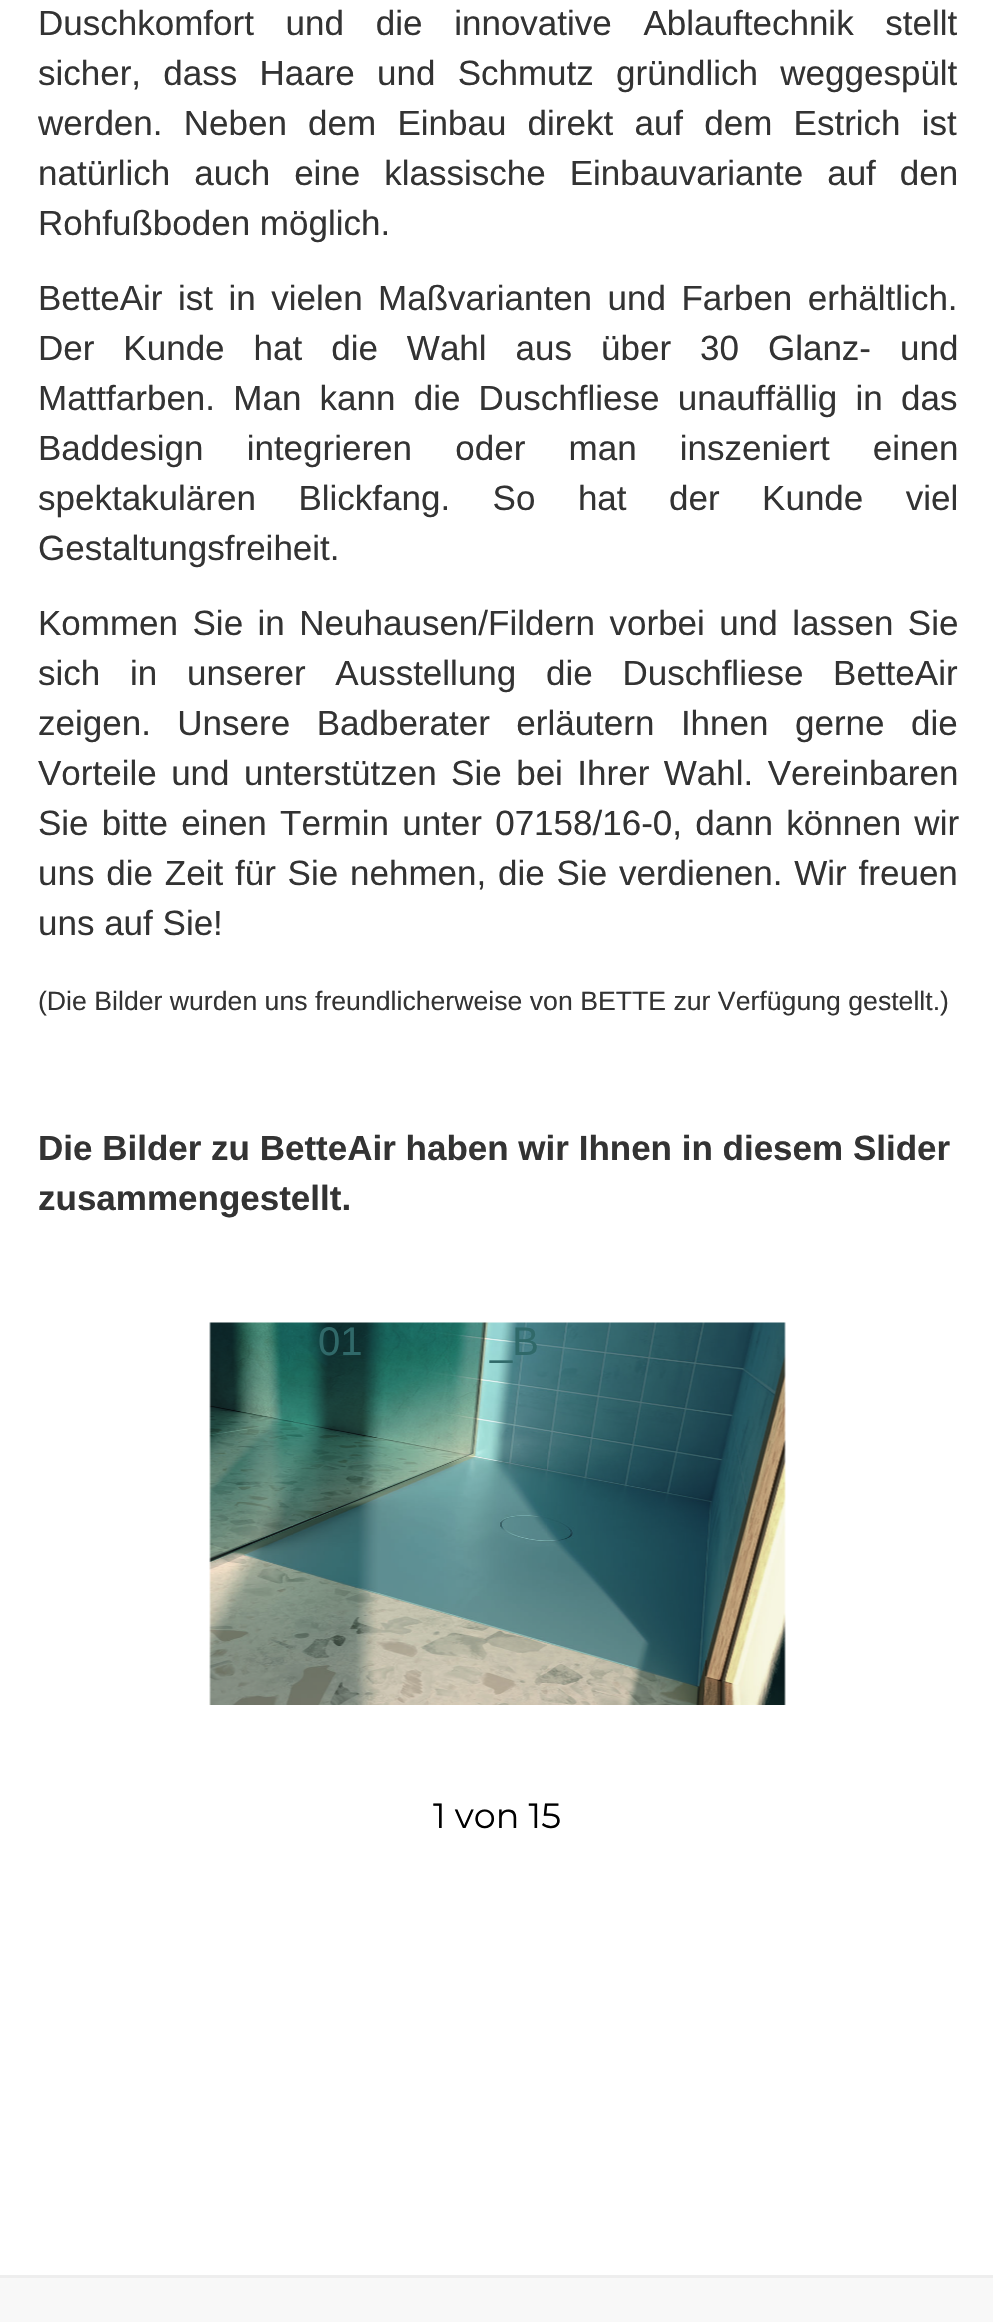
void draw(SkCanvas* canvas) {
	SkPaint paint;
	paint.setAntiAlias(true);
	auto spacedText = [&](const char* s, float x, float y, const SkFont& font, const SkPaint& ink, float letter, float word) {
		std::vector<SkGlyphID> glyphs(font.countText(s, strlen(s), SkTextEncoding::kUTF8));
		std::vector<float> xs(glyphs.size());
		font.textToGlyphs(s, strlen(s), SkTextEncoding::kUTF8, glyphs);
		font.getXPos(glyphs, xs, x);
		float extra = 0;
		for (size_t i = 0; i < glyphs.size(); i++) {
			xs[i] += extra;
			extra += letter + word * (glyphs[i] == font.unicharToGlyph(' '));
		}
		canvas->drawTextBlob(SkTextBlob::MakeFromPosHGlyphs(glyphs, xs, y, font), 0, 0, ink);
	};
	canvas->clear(0xffffffff);
	SkFont f1(fontMgr->matchFamilyStyle("Liberation Sans", SkFontStyle::Normal()), 35);
	f1.setSubpixel(true);
	paint.setColor(0xff333333);
	spacedText("Duschkomfort und die innovative Ablauftechnik stellt", 38, 35, f1, paint, 0, 22);
	spacedText("sicher, dass Haare und Schmutz gründlich weggespült", 38, 85, f1, paint, 0, 12.5);
	spacedText("werden. Neben dem Einbau direkt auf dem Estrich ist", 38, 135, f1, paint, 0, 11.5);
	spacedText("natürlich auch eine klassische Einbauvariante auf den", 38, 185, f1, paint, 0, 14.25);
	canvas->drawString("Rohfußboden möglich.", 38, 235, f1, paint);
	spacedText("BetteAir ist in vielen Maßvarianten und Farben erhältlich.", 38, 310, f1, paint, 0, 5.75);
	spacedText("Der Kunde hat die Wahl aus über 30 Glanz- und", 38, 360, f1, paint, 0, 19.25);
	spacedText("Mattfarben. Man kann die Duschfliese unauffällig in das", 38, 410, f1, paint, 0, 8.5);
	spacedText("Baddesign integrieren oder man inszeniert einen", 38, 460, f1, paint, 0, 33.5);
	spacedText("spektakulären Blickfang. So hat der Kunde viel", 38, 510, f1, paint, 0, 32.75);
	canvas->drawString("Gestaltungsfreiheit.", 38, 560, f1, paint);
	spacedText("Kommen Sie in Neuhausen/Fildern vorbei und lassen Sie", 38, 635, f1, paint, 0, 4.75);
	spacedText("sich in unserer Ausstellung die Duschfliese BetteAir", 38, 685, f1, paint, 0, 20);
	spacedText("zeigen. Unsere Badberater erläutern Ihnen gerne die", 38, 735, f1, paint, 0, 16.75);
	spacedText("Vorteile und unterstützen Sie bei Ihrer Wahl. Vereinbaren", 38, 785, f1, paint, 0, 4.75);
	spacedText("Sie bitte einen Termin unter 07158/16-0, dann können wir", 38, 835, f1, paint, 0, 3.5);
	spacedText("uns die Zeit für Sie nehmen, die Sie verdienen. Wir freuen", 38, 885, f1, paint, 0, 2.1);
	canvas->drawString("uns auf Sie!", 38, 935, f1, paint);
	SkFont f2(fontMgr->matchFamilyStyle("Liberation Sans", SkFontStyle::Normal()), 26.65);
	f2.setSubpixel(true);
	canvas->drawString("(Die Bilder wurden uns freundlicherweise von BETTE zur Verfügung gestellt.)", 38, 1010, f2, paint);
	SkFont f3(fontMgr->matchFamilyStyle("Liberation Sans", SkFontStyle::Bold()), 35);
	f3.setSubpixel(true);
	canvas->drawString("Die Bilder zu BetteAir haben wir Ihnen in diesem Slider", 38, 1160, f3, paint);
	canvas->drawString("zusammengestellt.", 38, 1210, f3, paint);
	canvas->drawImageRect(SkImages::DeferredFromEncodedData(SkData::MakeFromFileName("img1.png")), SkRect::MakeXYWH(209, 1322, 577, 383), SkSamplingOptions());
	SkFont f4(fontMgr->matchFamilyStyle("Liberation Sans", SkFontStyle::Normal()), 40);
	f4.setSubpixel(true);
	paint.setColor(0xff306969);
	canvas->drawString("01", 318, 1355, f4, paint);
	canvas->drawString("_B", 490, 1355, f4, paint);
	SkFont f5(fontMgr->matchFamilyStyle("Montserrat", SkFontStyle::Normal()), 35);
	f5.setSubpixel(true);
	paint.setColor(0xff000000);
	canvas->drawString("1 von 15", 433, 1828, f5, paint);
	paint.setColor(0xfff8f8f8);
	canvas->drawRect(SkRect::MakeXYWH(0, 2278, 993, 44), paint);
	paint.setColor(0xffeeeeee);
	canvas->drawRect(SkRect::MakeXYWH(0, 2275, 993, 3), paint);
}
